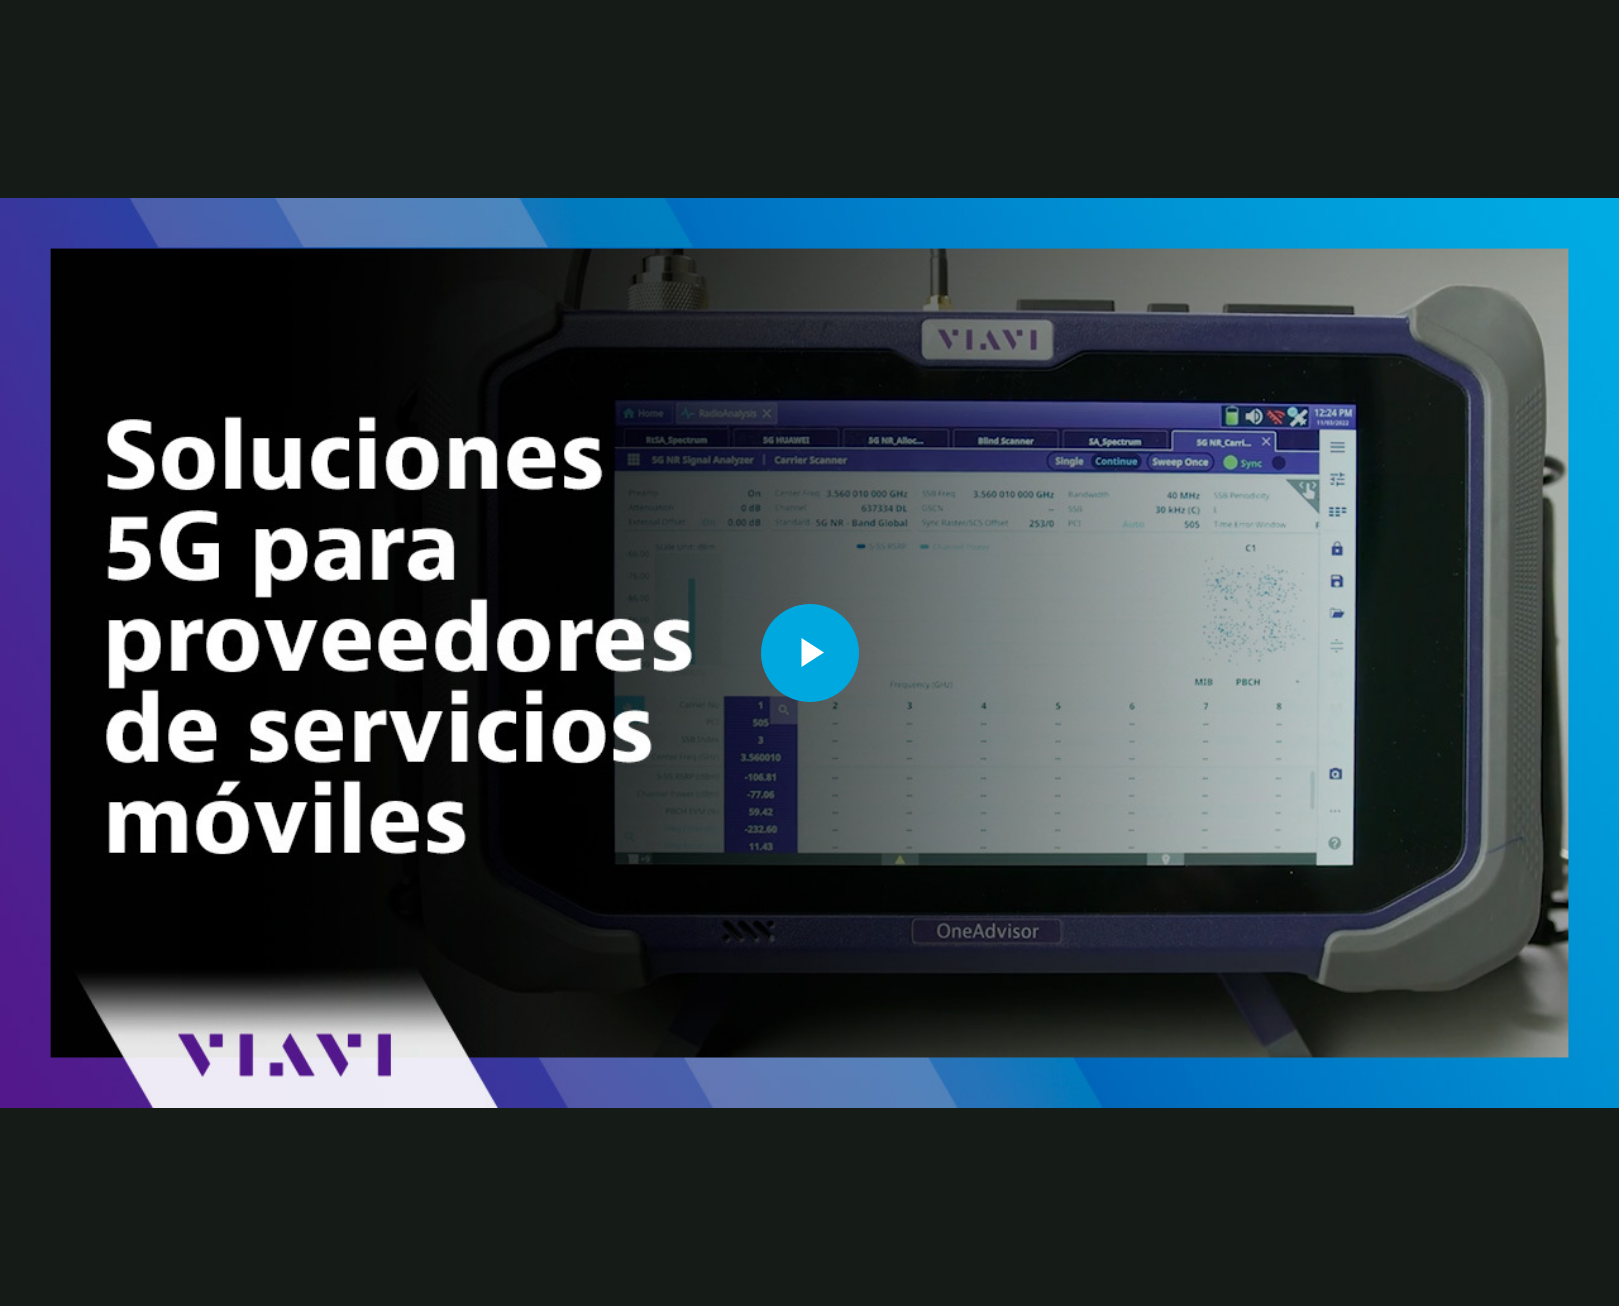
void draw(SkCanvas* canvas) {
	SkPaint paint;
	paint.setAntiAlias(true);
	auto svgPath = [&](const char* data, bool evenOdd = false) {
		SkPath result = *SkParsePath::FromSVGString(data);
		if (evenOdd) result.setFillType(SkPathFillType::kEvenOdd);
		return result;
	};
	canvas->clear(0xff151b17);
	canvas->drawImageRect(SkImages::DeferredFromEncodedData(SkData::MakeFromFileName("img1.png")), SkRect::MakeXYWH(0, 198, 1619, 910), SkSamplingOptions());
	paint.setColor(0xff00a8e0);
	canvas->drawCircle(810, 653, 49, paint);
	paint.setColor(0xffffffff);
	canvas->drawPath(svgPath("M801.5 638V667L824 652.5Z"), paint);
}
